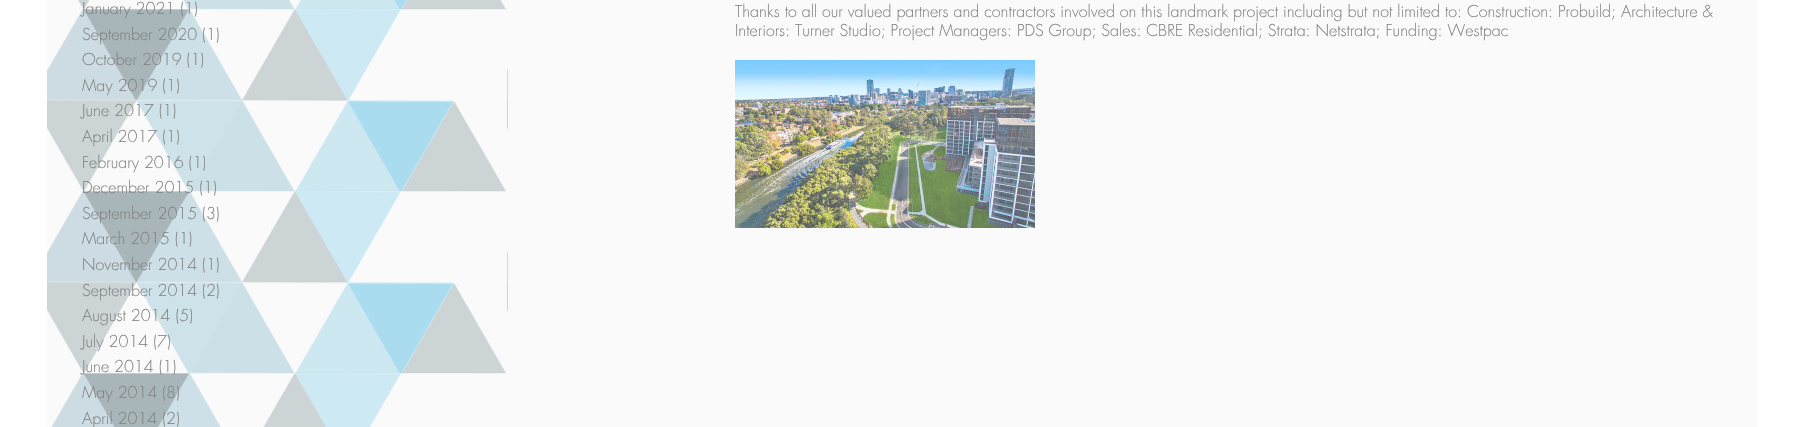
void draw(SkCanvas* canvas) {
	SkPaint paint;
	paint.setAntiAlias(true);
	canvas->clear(0xffffffff);
	paint.setColor(0xfffafafa);
	canvas->drawRect(SkRect::MakeXYWH(47, 0, 1710, 427), paint);
	canvas->drawImageRect(SkImages::DeferredFromEncodedData(SkData::MakeFromFileName("img1.png")), SkRect::MakeXYWH(47, 0, 461, 427), SkSamplingOptions());
	SkFont f1(fontMgr->matchFamilyStyle("Futura", SkFontStyle(300, SkFontStyle::kNormal_Width, SkFontStyle::kUpright_Slant)), 16);
	f1.setSubpixel(true);
	paint.setColor(0xff828282);
	canvas->drawString("January 2021 (1)", 82, 14, f1, paint);
	canvas->drawString("September 2020 (1)", 82, 40, f1, paint);
	canvas->drawString("October 2019 (1)", 82, 65, f1, paint);
	canvas->drawString("May 2019 (1)", 82, 91, f1, paint);
	canvas->drawString("June 2017 (1)", 82, 116, f1, paint);
	canvas->drawString("April 2017 (1)", 82, 142, f1, paint);
	canvas->drawString("February 2016 (1)", 82, 168, f1, paint);
	canvas->drawString("December 2015 (1)", 82, 193, f1, paint);
	canvas->drawString("September 2015 (3)", 82, 219, f1, paint);
	canvas->drawString("March 2015 (1)", 82, 244, f1, paint);
	canvas->drawString("November 2014 (1)", 82, 270, f1, paint);
	canvas->drawString("September 2014 (2)", 82, 296, f1, paint);
	canvas->drawString("August 2014 (5)", 82, 321, f1, paint);
	canvas->drawString("July 2014 (7)", 82, 347, f1, paint);
	canvas->drawString("June 2014 (1)", 82, 372, f1, paint);
	canvas->drawString("May 2014 (8)", 82, 398, f1, paint);
	canvas->drawString("April 2014 (2)", 82, 424, f1, paint);
	canvas->drawString("Thanks to all our valued partners and contractors involved on this landmark project including but not limited to: Construction: Probuild; Architecture &", 735, 17, f1, paint);
	canvas->drawString("Interiors: Turner Studio; Project Managers: PDS Group; Sales: CBRE Residential; Strata: Netstrata; Funding: Westpac", 735, 36, f1, paint);
	canvas->drawImageRect(SkImages::DeferredFromEncodedData(SkData::MakeFromFileName("img2.png")), SkRect::MakeXYWH(735, 60, 300, 168), SkSamplingOptions());
}
